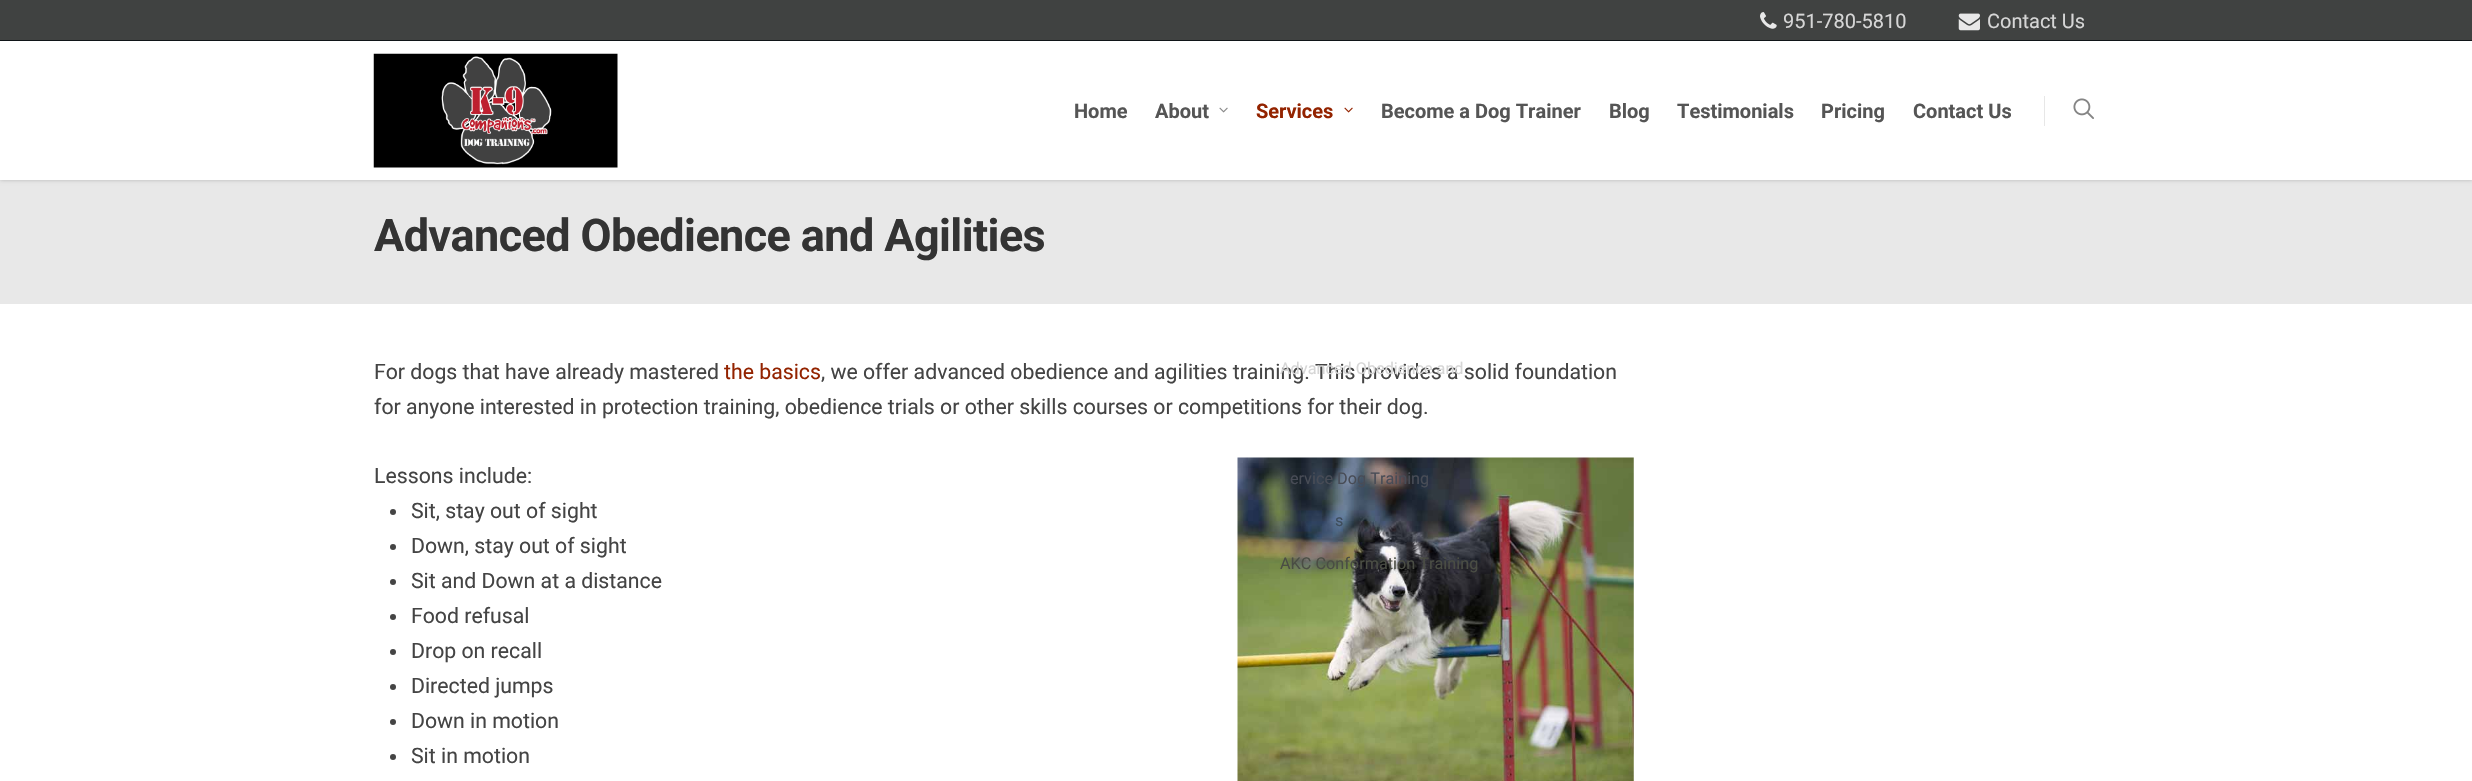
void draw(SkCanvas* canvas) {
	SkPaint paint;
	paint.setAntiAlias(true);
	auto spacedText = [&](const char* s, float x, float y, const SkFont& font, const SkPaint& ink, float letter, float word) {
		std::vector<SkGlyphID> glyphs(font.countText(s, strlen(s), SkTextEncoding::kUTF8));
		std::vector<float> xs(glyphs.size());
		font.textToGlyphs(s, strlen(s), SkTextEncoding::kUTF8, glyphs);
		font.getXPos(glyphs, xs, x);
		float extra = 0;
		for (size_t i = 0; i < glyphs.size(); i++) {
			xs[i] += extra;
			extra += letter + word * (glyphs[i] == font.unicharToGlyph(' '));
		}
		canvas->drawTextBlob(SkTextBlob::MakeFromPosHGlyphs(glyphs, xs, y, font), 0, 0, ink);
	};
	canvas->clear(0xff12171a);
	paint.setColor(0xffe8e8e8);
	canvas->drawRect(SkRect::MakeXYWH(0, 180, 2472, 124), paint);
	paint.setColor(0x38000000);
	paint.setMaskFilter(SkMaskFilter::MakeBlur(kNormal_SkBlurStyle, 2));
	canvas->drawRect(SkRect::MakeXYWH(0, 41, 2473, 139), paint);
	paint.setMaskFilter(nullptr);
	paint.setColor(0xff404241);
	canvas->drawRect(SkRect::MakeXYWH(0, 0, 2472, 40), paint);
	canvas->drawImageRect(SkImages::DeferredFromEncodedData(SkData::MakeFromFileName("img1.png")), SkRect::MakeXYWH(1760, 12, 17, 17), SkSamplingOptions());
	SkFont f1(fontMgr->matchFamilyStyle("Roboto", SkFontStyle::Normal()), 20);
	f1.setSubpixel(true);
	paint.setColor(0xffd6d6d6);
	canvas->drawString("951-780-5810", 1783, 28, f1, paint);
	canvas->drawImageRect(SkImages::DeferredFromEncodedData(SkData::MakeFromFileName("img2.png")), SkRect::MakeXYWH(1958, 13, 22, 18), SkSamplingOptions());
	canvas->drawString("Contact Us", 1987, 28, f1, paint);
	paint.setColor(0xffffffff);
	canvas->drawRect(SkRect::MakeXYWH(0, 41, 2472, 139), paint);
	canvas->drawImageRect(SkImages::DeferredFromEncodedData(SkData::MakeFromFileName("img3.png")), SkRect::MakeXYWH(373, 53, 245, 115), SkSamplingOptions());
	SkFont f2(fontMgr->matchFamilyStyle("Roboto", SkFontStyle::Bold()), 20);
	f2.setSubpixel(true);
	paint.setColor(0xff555555);
	canvas->drawString("Home", 1074, 118, f2, paint);
	canvas->drawString("About", 1155, 118, f2, paint);
	canvas->drawImageRect(SkImages::DeferredFromEncodedData(SkData::MakeFromFileName("img4.png")), SkRect::MakeXYWH(1219, 107, 9, 6), SkSamplingOptions());
	paint.setColor(0xff932300);
	canvas->drawString("Services", 1256, 118, f2, paint);
	canvas->drawImageRect(SkImages::DeferredFromEncodedData(SkData::MakeFromFileName("img5.png")), SkRect::MakeXYWH(1344, 107, 9, 6), SkSamplingOptions());
	paint.setColor(0xffffffff);
	canvas->drawRect(SkRect::MakeXYWH(0, 304, 2472, 477), paint);
	SkFont f3(fontMgr->matchFamilyStyle("Roboto", SkFontStyle::Normal()), 21.25);
	f3.setSubpixel(true);
	paint.setColor(0xff444444);
	canvas->drawString(", we offer advanced obedience and agilities training. This provides a solid foundation", 821, 379, f3, paint);
	SkFont f4(fontMgr->matchFamilyStyle("Roboto", SkFontStyle::Normal()), 16.25);
	f4.setSubpixel(true);
	paint.setColor(0xffd6d6d6);
	canvas->drawString("Advanced Obedience and", 1280, 374, f4, paint);
	canvas->drawImageRect(SkImages::DeferredFromEncodedData(SkData::MakeFromFileName("img7.png")), SkRect::MakeXYWH(1237, 457, 397, 324), SkSamplingOptions());
	paint.setColor(0xff484c56);
	canvas->drawString("ervice Dog Training", 1290, 484, f4, paint);
	paint.setColor(0xff3e4e5c);
	canvas->drawString("s", 1335, 526, f4, paint);
	paint.setColor(0xff4a4d44);
	canvas->drawString("AKC Conformation Training", 1280, 569, f4, paint);
	paint.setColor(0xff555555);
	canvas->drawString("Become a Dog Trainer", 1381, 118, f2, paint);
	canvas->drawString("Blog", 1609, 118, f2, paint);
	canvas->drawString("Testimonials", 1677, 118, f2, paint);
	canvas->drawString("Pricing", 1821, 118, f2, paint);
	canvas->drawString("Contact Us", 1913, 118, f2, paint);
	paint.setColor(0xffe7e7e7);
	canvas->drawRect(SkRect::MakeXYWH(2044, 96, 1, 30), paint);
	canvas->drawImageRect(SkImages::DeferredFromEncodedData(SkData::MakeFromFileName("img6.png")), SkRect::MakeXYWH(2073, 98, 21, 21), SkSamplingOptions());
	SkFont f5(fontMgr->matchFamilyStyle("Roboto", SkFontStyle::Bold()), 45);
	f5.setSubpixel(true);
	paint.setColor(0xff333333);
	spacedText("Advanced Obedience and Agilities", 374, 251, f5, paint, -0.6, 0);
	paint.setColor(0xff444444);
	canvas->drawString("For dogs that have already mastered", 374, 379, f3, paint);
	paint.setColor(0xff932300);
	canvas->drawString("the basics", 724, 379, f3, paint);
	paint.setColor(0xff444444);
	canvas->drawString("for anyone interested in protection training, obedience trials or other skills courses or competitions for their dog.", 374, 414, f3, paint);
	canvas->drawString("Lessons include:", 374, 483, f3, paint);
	canvas->drawCircle(393, 512, 3, paint);
	canvas->drawString("Sit, stay out of sight", 411, 518, f3, paint);
	canvas->drawCircle(393, 547, 3, paint);
	canvas->drawString("Down, stay out of sight", 411, 553, f3, paint);
	canvas->drawCircle(393, 582, 3, paint);
	canvas->drawString("Sit and Down at a distance", 411, 588, f3, paint);
	canvas->drawCircle(393, 617, 3, paint);
	canvas->drawString("Food refusal", 411, 623, f3, paint);
	canvas->drawCircle(393, 652, 3, paint);
	canvas->drawString("Drop on recall", 411, 658, f3, paint);
	canvas->drawCircle(393, 687, 3, paint);
	canvas->drawString("Directed jumps", 411, 693, f3, paint);
	canvas->drawCircle(393, 722, 3, paint);
	canvas->drawString("Down in motion", 411, 728, f3, paint);
	canvas->drawCircle(393, 757, 3, paint);
	canvas->drawString("Sit in motion", 411, 763, f3, paint);
}
